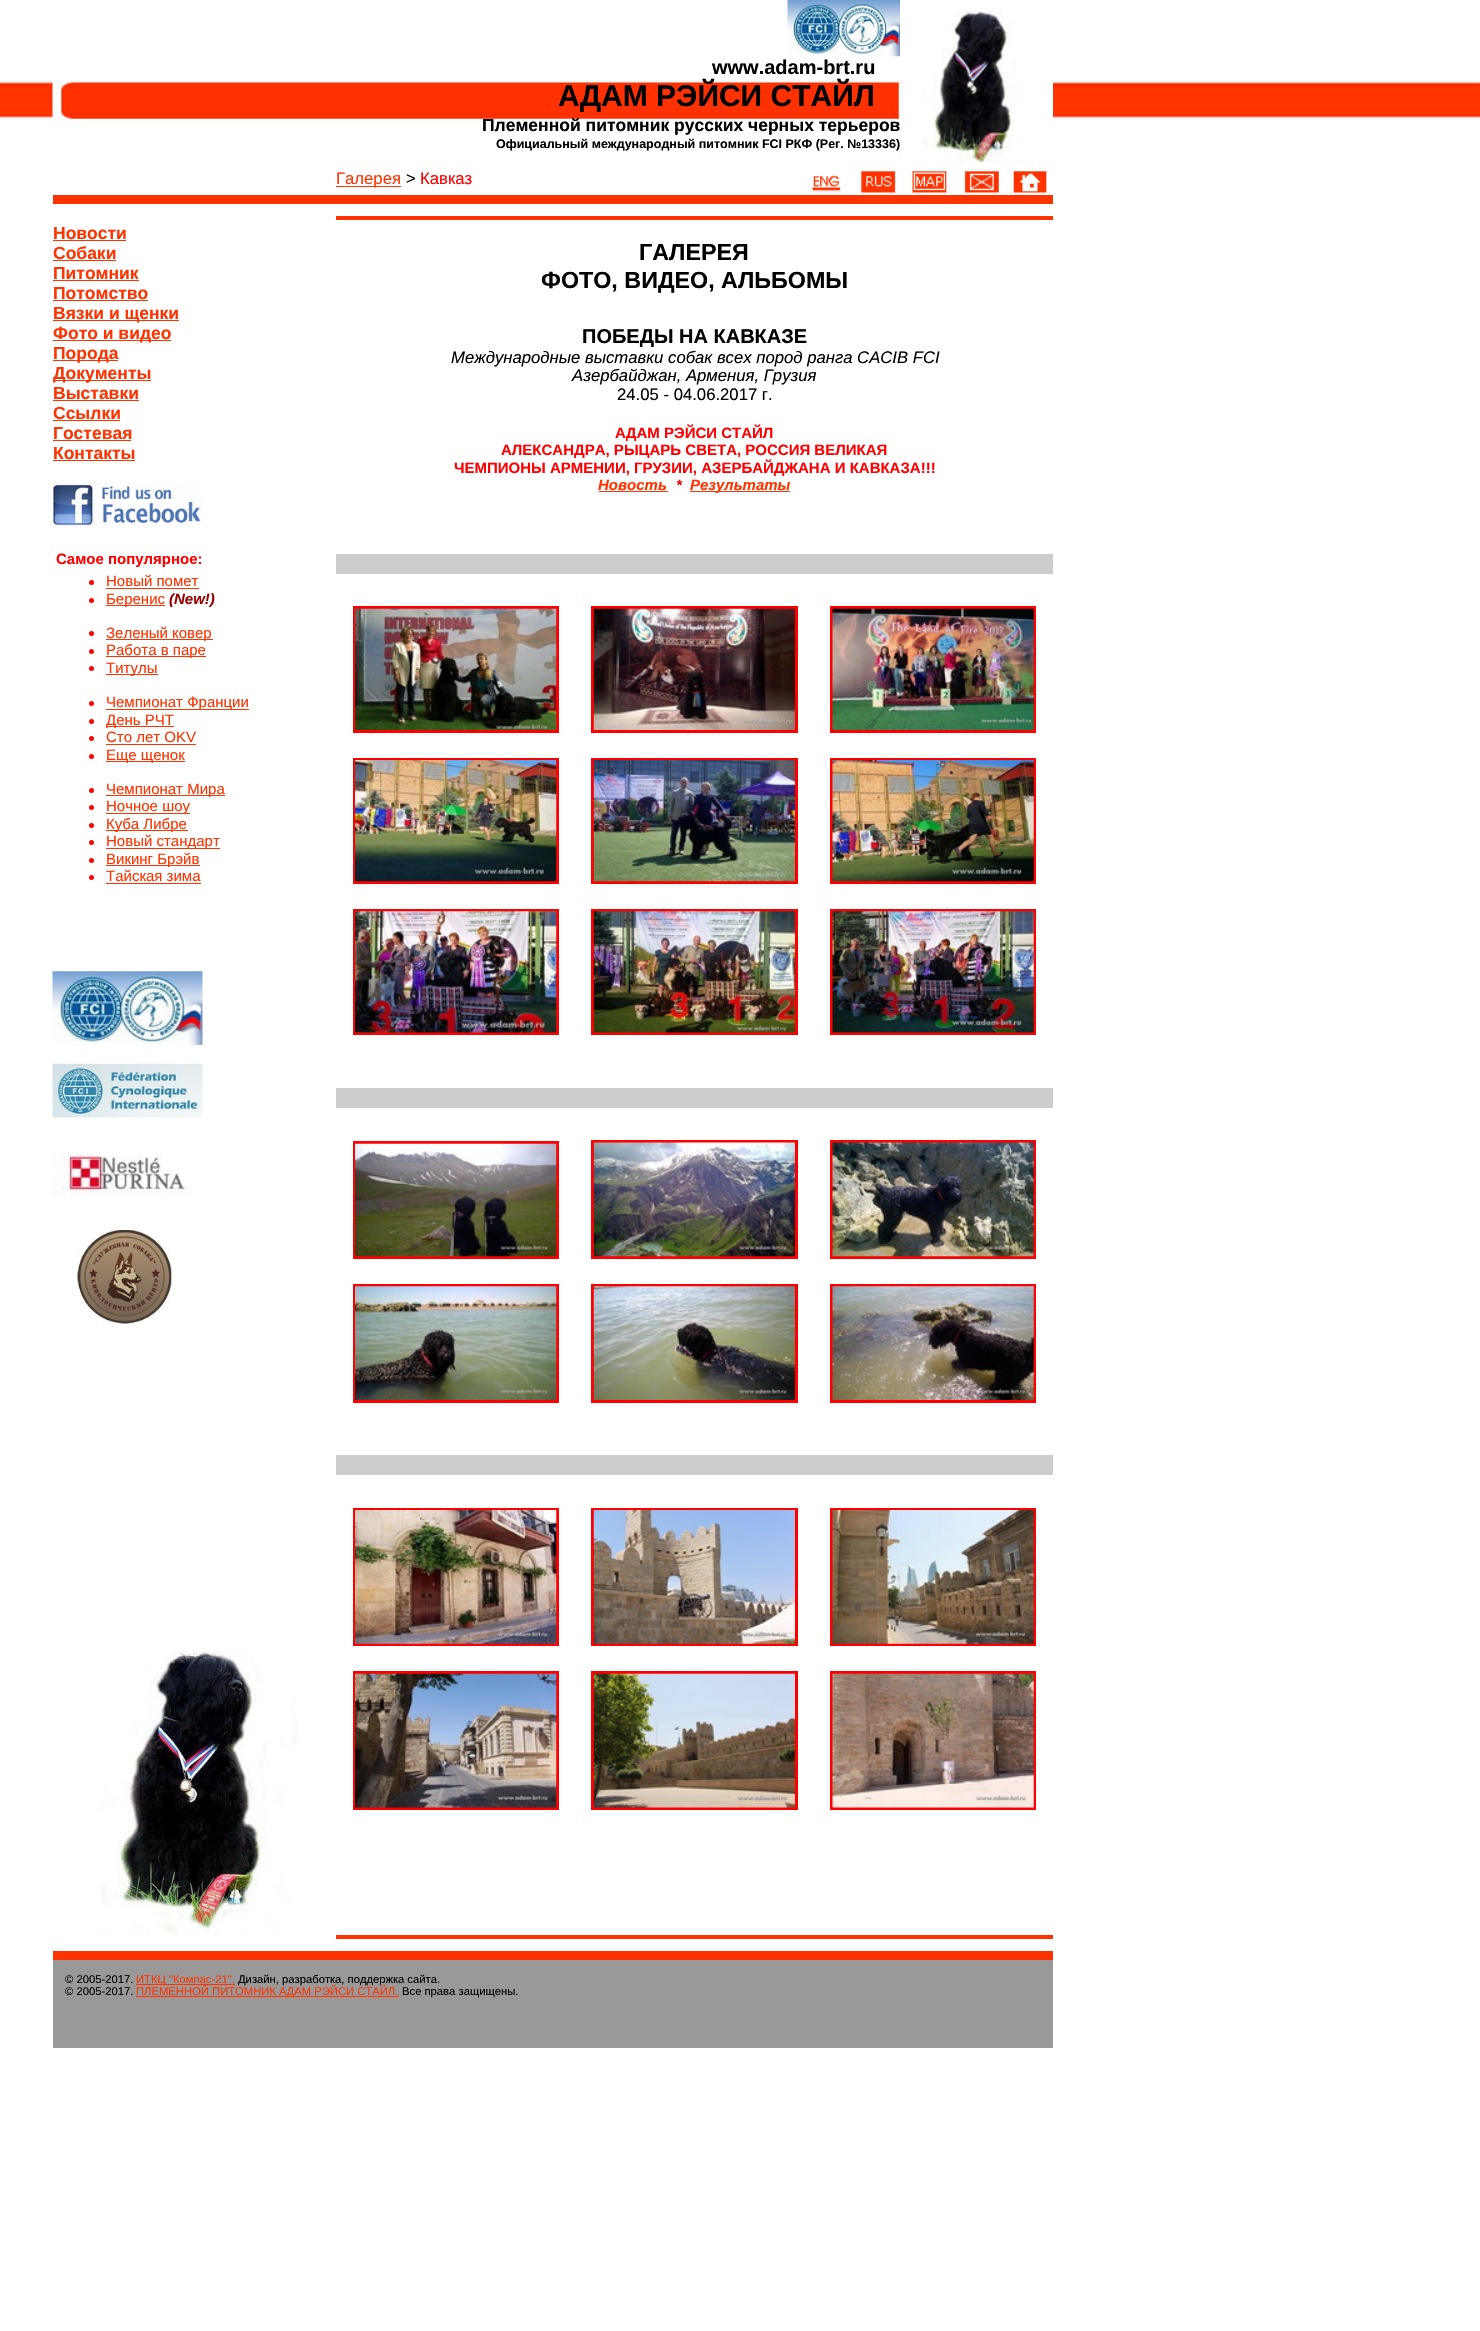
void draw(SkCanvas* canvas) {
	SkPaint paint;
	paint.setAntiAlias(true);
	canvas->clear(0xffffffff);
	canvas->drawImageRect(SkImages::DeferredFromEncodedData(SkData::MakeFromFileName("img1.png")), SkRect::MakeXYWH(0, 80, 1480, 40), SkSamplingOptions());
	paint.setColor(0xffffffff);
	canvas->drawRect(SkRect::MakeXYWH(53, 80, 1000, 40), paint);
	canvas->drawImageRect(SkImages::DeferredFromEncodedData(SkData::MakeFromFileName("img2.png")), SkRect::MakeXYWH(52, 10, 970, 153), SkSamplingOptions());
	canvas->drawImageRect(SkImages::DeferredFromEncodedData(SkData::MakeFromFileName("img3.png")), SkRect::MakeXYWH(787, 0, 113, 57), SkSamplingOptions());
	SkFont f1(fontMgr->matchFamilyStyle("Liberation Sans", SkFontStyle::Bold()), 20);
	f1.setSubpixel(true);
	paint.setColor(0xff000000);
	canvas->drawString("www.adam-brt.ru", 712, 74, f1, paint);
	SkFont f2(fontMgr->matchFamilyStyle("Liberation Sans", SkFontStyle::Bold()), 30);
	f2.setSubpixel(true);
	canvas->drawString("АДАМ РЭЙСИ СТАЙЛ", 558, 106, f2, paint);
	SkFont f3(fontMgr->matchFamilyStyle("Liberation Sans", SkFontStyle::Bold()), 17.5);
	f3.setSubpixel(true);
	canvas->drawString("Племенной питомник русских черных терьеров", 482, 131, f3, paint);
	SkFont f4(fontMgr->matchFamilyStyle("Liberation Sans", SkFontStyle::Bold()), 12.5);
	f4.setSubpixel(true);
	canvas->drawString("Официальный международный питомник FCI РКФ (Рег. №13336)", 496, 148, f4, paint);
	paint.setColor(0xffff3300);
	canvas->drawRect(SkRect::MakeXYWH(336, 186, 65, 1), paint);
	SkFont f5(fontMgr->matchFamilyStyle("Liberation Sans", SkFontStyle::Normal()), 16.7);
	f5.setSubpixel(true);
	canvas->drawString("Галерея", 336, 184, f5, paint);
	paint.setColor(0xff000000);
	canvas->drawString(">", 406, 184, f5, paint);
	paint.setColor(0xffff0000);
	canvas->drawString("Кавказ", 420, 184, f5, paint);
	canvas->drawImageRect(SkImages::DeferredFromEncodedData(SkData::MakeFromFileName("img4.png")), SkRect::MakeXYWH(812, 175, 29, 17), SkSamplingOptions());
	canvas->drawImageRect(SkImages::DeferredFromEncodedData(SkData::MakeFromFileName("img5.png")), SkRect::MakeXYWH(861, 171, 35, 22), SkSamplingOptions());
	canvas->drawImageRect(SkImages::DeferredFromEncodedData(SkData::MakeFromFileName("img6.png")), SkRect::MakeXYWH(912, 171, 35, 22), SkSamplingOptions());
	canvas->drawImageRect(SkImages::DeferredFromEncodedData(SkData::MakeFromFileName("img7.png")), SkRect::MakeXYWH(964, 162, 35, 31), SkSamplingOptions());
	canvas->drawImageRect(SkImages::DeferredFromEncodedData(SkData::MakeFromFileName("img8.png")), SkRect::MakeXYWH(1013, 171, 34, 22), SkSamplingOptions());
	paint.setColor(0xffff3300);
	canvas->drawRect(SkRect::MakeXYWH(53, 195, 1000, 9), paint);
	canvas->drawString("Новости", 53, 239, f3, paint);
	canvas->drawRect(SkRect::MakeXYWH(53, 240, 73, 1), paint);
	canvas->drawString("Собаки", 53, 259, f3, paint);
	canvas->drawRect(SkRect::MakeXYWH(53, 260, 63, 1), paint);
	canvas->drawString("Питомник", 53, 279, f3, paint);
	canvas->drawRect(SkRect::MakeXYWH(53, 280, 86, 1), paint);
	canvas->drawString("Потомство", 53, 299, f3, paint);
	canvas->drawRect(SkRect::MakeXYWH(53, 300, 95, 1), paint);
	canvas->drawRect(SkRect::MakeXYWH(53, 320, 126, 1), paint);
	canvas->drawString("Вязки и щенки", 53, 319, f3, paint);
	canvas->drawRect(SkRect::MakeXYWH(53, 340, 118, 1), paint);
	canvas->drawString("Фото и видео", 53, 339, f3, paint);
	canvas->drawRect(SkRect::MakeXYWH(53, 360, 65, 1), paint);
	canvas->drawString("Порода", 53, 359, f3, paint);
	canvas->drawRect(SkRect::MakeXYWH(53, 380, 98, 1), paint);
	canvas->drawString("Документы", 53, 379, f3, paint);
	canvas->drawString("Выставки", 53, 399, f3, paint);
	canvas->drawRect(SkRect::MakeXYWH(53, 400, 86, 1), paint);
	canvas->drawString("Ссылки", 53, 419, f3, paint);
	canvas->drawRect(SkRect::MakeXYWH(53, 420, 67, 1), paint);
	canvas->drawString("Гостевая", 53, 439, f3, paint);
	canvas->drawRect(SkRect::MakeXYWH(53, 440, 78, 1), paint);
	canvas->drawString("Контакты", 53, 459, f3, paint);
	canvas->drawRect(SkRect::MakeXYWH(53, 460, 82, 1), paint);
	canvas->drawImageRect(SkImages::DeferredFromEncodedData(SkData::MakeFromFileName("img9.png")), SkRect::MakeXYWH(52, 481, 150, 46), SkSamplingOptions());
	SkFont f6(fontMgr->matchFamilyStyle("Liberation Sans", SkFontStyle::Bold()), 15);
	f6.setSubpixel(true);
	paint.setColor(0xffff0000);
	canvas->drawString("Самое популярное:", 56, 564, f6, paint);
	canvas->drawCircle(91.5, 582.5, 2.5, paint);
	SkFont f7(fontMgr->matchFamilyStyle("Liberation Sans", SkFontStyle::Normal()), 15);
	f7.setSubpixel(true);
	paint.setColor(0xffff3300);
	canvas->drawString("Новый помет", 106, 586, f7, paint);
	canvas->drawRect(SkRect::MakeXYWH(106, 588, 93, 1), paint);
	paint.setColor(0xffff0000);
	canvas->drawCircle(91.5, 600.5, 2.5, paint);
	paint.setColor(0xffff3300);
	canvas->drawRect(SkRect::MakeXYWH(106, 605, 59, 1), paint);
	canvas->drawString("Беренис", 106, 604, f7, paint);
	SkFont f8(fontMgr->matchFamilyStyle("Liberation Sans", SkFontStyle::BoldItalic()), 15);
	f8.setSubpixel(true);
	paint.setColor(0xff990000);
	canvas->drawString("(New!)", 169, 604, f8, paint);
	paint.setColor(0xffff0000);
	canvas->drawCircle(91.5, 633.5, 2.5, paint);
	paint.setColor(0xffff3300);
	canvas->drawRect(SkRect::MakeXYWH(106, 639, 107, 1), paint);
	canvas->drawString("Зеленый ковер", 106, 638, f7, paint);
	paint.setColor(0xffff0000);
	canvas->drawCircle(91.5, 651.5, 2.5, paint);
	paint.setColor(0xffff3300);
	canvas->drawRect(SkRect::MakeXYWH(106, 656, 100, 1), paint);
	canvas->drawString("Работа в паре", 106, 655, f7, paint);
	paint.setColor(0xffff0000);
	canvas->drawCircle(91.5, 668.5, 2.5, paint);
	paint.setColor(0xffff3300);
	canvas->drawRect(SkRect::MakeXYWH(106, 674, 52, 1), paint);
	canvas->drawString("Титулы", 106, 673, f7, paint);
	paint.setColor(0xffff0000);
	canvas->drawCircle(91.5, 703.5, 2.5, paint);
	paint.setColor(0xffff3300);
	canvas->drawRect(SkRect::MakeXYWH(106, 709, 143, 1), paint);
	canvas->drawString("Чемпионат Франции", 106, 707, f7, paint);
	paint.setColor(0xffff0000);
	canvas->drawCircle(91.5, 721.5, 2.5, paint);
	paint.setColor(0xffff3300);
	canvas->drawRect(SkRect::MakeXYWH(106, 726, 68, 1), paint);
	canvas->drawString("День РЧТ", 106, 725, f7, paint);
	paint.setColor(0xffff0000);
	canvas->drawCircle(91.5, 738.5, 2.5, paint);
	paint.setColor(0xffff3300);
	canvas->drawString("Сто лет OKV", 106, 742, f7, paint);
	canvas->drawRect(SkRect::MakeXYWH(106, 744, 90, 1), paint);
	paint.setColor(0xffff0000);
	canvas->drawCircle(91.5, 756.5, 2.5, paint);
	paint.setColor(0xffff3300);
	canvas->drawRect(SkRect::MakeXYWH(106, 761, 79, 1), paint);
	canvas->drawString("Еще щенок", 106, 760, f7, paint);
	paint.setColor(0xffff0000);
	canvas->drawCircle(91.5, 790.5, 2.5, paint);
	paint.setColor(0xffff3300);
	canvas->drawRect(SkRect::MakeXYWH(106, 795, 119, 1), paint);
	canvas->drawString("Чемпионат Мира", 106, 794, f7, paint);
	paint.setColor(0xffff0000);
	canvas->drawCircle(91.5, 807.5, 2.5, paint);
	paint.setColor(0xffff3300);
	canvas->drawRect(SkRect::MakeXYWH(106, 813, 84, 1), paint);
	canvas->drawString("Ночное шоу", 106, 811, f7, paint);
	paint.setColor(0xffff0000);
	canvas->drawCircle(91.5, 825.5, 2.5, paint);
	paint.setColor(0xffff3300);
	canvas->drawRect(SkRect::MakeXYWH(106, 830, 82, 1), paint);
	canvas->drawString("Куба Либре", 106, 829, f7, paint);
	paint.setColor(0xffff0000);
	canvas->drawCircle(91.5, 842.5, 2.5, paint);
	paint.setColor(0xffff3300);
	canvas->drawRect(SkRect::MakeXYWH(106, 848, 114, 1), paint);
	canvas->drawString("Новый стандарт", 106, 846, f7, paint);
	paint.setColor(0xffff0000);
	canvas->drawCircle(91.5, 860.5, 2.5, paint);
	paint.setColor(0xffff3300);
	canvas->drawRect(SkRect::MakeXYWH(106, 865, 94, 1), paint);
	canvas->drawString("Викинг Брэйв", 106, 864, f7, paint);
	paint.setColor(0xffff0000);
	canvas->drawCircle(91.5, 877.5, 2.5, paint);
	paint.setColor(0xffff3300);
	canvas->drawString("Тайская зима", 106, 881, f7, paint);
	canvas->drawRect(SkRect::MakeXYWH(106, 883, 95, 1), paint);
	canvas->drawImageRect(SkImages::DeferredFromEncodedData(SkData::MakeFromFileName("img10.png")), SkRect::MakeXYWH(52, 971, 151, 74), SkSamplingOptions());
	canvas->drawImageRect(SkImages::DeferredFromEncodedData(SkData::MakeFromFileName("img11.png")), SkRect::MakeXYWH(52, 1063, 151, 55), SkSamplingOptions());
	canvas->drawImageRect(SkImages::DeferredFromEncodedData(SkData::MakeFromFileName("img12.png")), SkRect::MakeXYWH(52, 1151, 140, 45), SkSamplingOptions());
	canvas->drawImageRect(SkImages::DeferredFromEncodedData(SkData::MakeFromFileName("img13.png")), SkRect::MakeXYWH(77, 1230, 95, 94), SkSamplingOptions());
	canvas->drawImageRect(SkImages::DeferredFromEncodedData(SkData::MakeFromFileName("img14.png")), SkRect::MakeXYWH(98, 1649, 200, 286), SkSamplingOptions());
	canvas->drawRect(SkRect::MakeXYWH(336, 216, 717, 4), paint);
	SkFont f9(fontMgr->matchFamilyStyle("Liberation Sans", SkFontStyle::Bold()), 23.3);
	f9.setSubpixel(true);
	paint.setColor(0xff000000);
	canvas->drawString("ГАЛЕРЕЯ", 639, 260, f9, paint);
	canvas->drawString("ФОТО, ВИДЕО, АЛЬБОМЫ", 541, 288, f9, paint);
	canvas->drawString("ПОБЕДЫ НА КАВКАЗЕ", 582, 343, f1, paint);
	SkFont f10(fontMgr->matchFamilyStyle("Liberation Sans", SkFontStyle::Italic()), 16.7);
	f10.setSubpixel(true);
	canvas->drawString("Международные выставки собак всех пород ранга CACIB FCI", 451, 363, f10, paint);
	canvas->drawString("Азербайджан, Армения, Грузия", 572, 381, f10, paint);
	canvas->drawString("24.05 - 04.06.2017 г.", 617, 400, f5, paint);
	paint.setColor(0xffff0000);
	canvas->drawString("АДАМ РЭЙСИ СТАЙЛ", 615, 438, f6, paint);
	canvas->drawString("АЛЕКСАНДРА, РЫЦАРЬ СВЕТА, РОССИЯ ВЕЛИКАЯ", 501, 455, f6, paint);
	canvas->drawString("ЧЕМПИОНЫ АРМЕНИИ, ГРУЗИИ, АЗЕРБАЙДЖАНА И КАВКАЗА!!!", 454, 473, f6, paint);
	paint.setColor(0xffff3300);
	canvas->drawString("Новость", 598, 490, f8, paint);
	canvas->drawRect(SkRect::MakeXYWH(599, 491, 69, 1), paint);
	paint.setColor(0xffff0000);
	canvas->drawString("*", 676, 490, f8, paint);
	paint.setColor(0xffff3300);
	canvas->drawRect(SkRect::MakeXYWH(690, 491, 100, 1), paint);
	canvas->drawString("Результаты", 690, 490, f8, paint);
	paint.setColor(0xffcccccc);
	canvas->drawRect(SkRect::MakeXYWH(336, 554, 717, 20), paint);
	paint.setStroke(true);
	paint.setStrokeWidth(3);
	paint.setColor(0xffff0000);
	canvas->drawRect(SkRect::MakeXYWH(354.5, 607.5, 203, 124), paint);
	canvas->drawImageRect(SkImages::DeferredFromEncodedData(SkData::MakeFromFileName("img15.png")), SkRect::MakeXYWH(355, 608, 202, 122), SkSamplingOptions());
	canvas->drawRect(SkRect::MakeXYWH(592.5, 607.5, 204, 124), paint);
	canvas->drawImageRect(SkImages::DeferredFromEncodedData(SkData::MakeFromFileName("img16.png")), SkRect::MakeXYWH(593, 608, 202, 122), SkSamplingOptions());
	canvas->drawRect(SkRect::MakeXYWH(831.5, 607.5, 203, 124), paint);
	canvas->drawImageRect(SkImages::DeferredFromEncodedData(SkData::MakeFromFileName("img17.png")), SkRect::MakeXYWH(832, 608, 202, 122), SkSamplingOptions());
	canvas->drawRect(SkRect::MakeXYWH(354.5, 759.5, 203, 123), paint);
	canvas->drawImageRect(SkImages::DeferredFromEncodedData(SkData::MakeFromFileName("img18.png")), SkRect::MakeXYWH(355, 760, 202, 122), SkSamplingOptions());
	canvas->drawRect(SkRect::MakeXYWH(592.5, 759.5, 204, 123), paint);
	canvas->drawImageRect(SkImages::DeferredFromEncodedData(SkData::MakeFromFileName("img19.png")), SkRect::MakeXYWH(593, 760, 202, 122), SkSamplingOptions());
	canvas->drawRect(SkRect::MakeXYWH(831.5, 759.5, 203, 123), paint);
	canvas->drawImageRect(SkImages::DeferredFromEncodedData(SkData::MakeFromFileName("img20.png")), SkRect::MakeXYWH(832, 760, 202, 122), SkSamplingOptions());
	canvas->drawRect(SkRect::MakeXYWH(354.5, 910.5, 203, 123), paint);
	canvas->drawImageRect(SkImages::DeferredFromEncodedData(SkData::MakeFromFileName("img21.png")), SkRect::MakeXYWH(355, 911, 202, 122), SkSamplingOptions());
	canvas->drawRect(SkRect::MakeXYWH(592.5, 910.5, 204, 123), paint);
	canvas->drawImageRect(SkImages::DeferredFromEncodedData(SkData::MakeFromFileName("img22.png")), SkRect::MakeXYWH(593, 911, 202, 122), SkSamplingOptions());
	canvas->drawRect(SkRect::MakeXYWH(831.5, 910.5, 203, 123), paint);
	canvas->drawImageRect(SkImages::DeferredFromEncodedData(SkData::MakeFromFileName("img23.png")), SkRect::MakeXYWH(832, 911, 202, 122), SkSamplingOptions());
	paint.setStroke(false);
	paint.setColor(0xffcccccc);
	canvas->drawRect(SkRect::MakeXYWH(336, 1088, 717, 20), paint);
	paint.setStroke(true);
	paint.setColor(0xffff0000);
	canvas->drawRect(SkRect::MakeXYWH(354.5, 1142.5, 203, 115), paint);
	canvas->drawImageRect(SkImages::DeferredFromEncodedData(SkData::MakeFromFileName("img24.png")), SkRect::MakeXYWH(355, 1143, 202, 114), SkSamplingOptions());
	canvas->drawRect(SkRect::MakeXYWH(592.5, 1141.5, 204, 116), paint);
	canvas->drawImageRect(SkImages::DeferredFromEncodedData(SkData::MakeFromFileName("img25.png")), SkRect::MakeXYWH(593, 1142, 202, 115), SkSamplingOptions());
	canvas->drawRect(SkRect::MakeXYWH(831.5, 1141.5, 203, 116), paint);
	canvas->drawImageRect(SkImages::DeferredFromEncodedData(SkData::MakeFromFileName("img26.png")), SkRect::MakeXYWH(832, 1142, 202, 115), SkSamplingOptions());
	canvas->drawRect(SkRect::MakeXYWH(354.5, 1285.5, 203, 116), paint);
	canvas->drawImageRect(SkImages::DeferredFromEncodedData(SkData::MakeFromFileName("img27.png")), SkRect::MakeXYWH(355, 1286, 202, 114), SkSamplingOptions());
	canvas->drawRect(SkRect::MakeXYWH(592.5, 1285.5, 204, 116), paint);
	canvas->drawImageRect(SkImages::DeferredFromEncodedData(SkData::MakeFromFileName("img28.png")), SkRect::MakeXYWH(593, 1286, 202, 114), SkSamplingOptions());
	canvas->drawRect(SkRect::MakeXYWH(831.5, 1285.5, 203, 116), paint);
	canvas->drawImageRect(SkImages::DeferredFromEncodedData(SkData::MakeFromFileName("img29.png")), SkRect::MakeXYWH(832, 1286, 202, 114), SkSamplingOptions());
	paint.setStroke(false);
	paint.setColor(0xffcccccc);
	canvas->drawRect(SkRect::MakeXYWH(336, 1455, 717, 20), paint);
	paint.setStroke(true);
	paint.setColor(0xffff0000);
	canvas->drawRect(SkRect::MakeXYWH(354.5, 1509.5, 203, 135), paint);
	canvas->drawImageRect(SkImages::DeferredFromEncodedData(SkData::MakeFromFileName("img30.png")), SkRect::MakeXYWH(355, 1510, 202, 134), SkSamplingOptions());
	canvas->drawRect(SkRect::MakeXYWH(592.5, 1509.5, 204, 135), paint);
	canvas->drawImageRect(SkImages::DeferredFromEncodedData(SkData::MakeFromFileName("img31.png")), SkRect::MakeXYWH(593, 1510, 202, 134), SkSamplingOptions());
	canvas->drawRect(SkRect::MakeXYWH(831.5, 1509.5, 203, 135), paint);
	canvas->drawImageRect(SkImages::DeferredFromEncodedData(SkData::MakeFromFileName("img32.png")), SkRect::MakeXYWH(832, 1510, 202, 134), SkSamplingOptions());
	canvas->drawRect(SkRect::MakeXYWH(354.5, 1672.5, 203, 136), paint);
	canvas->drawImageRect(SkImages::DeferredFromEncodedData(SkData::MakeFromFileName("img33.png")), SkRect::MakeXYWH(355, 1673, 202, 135), SkSamplingOptions());
	canvas->drawRect(SkRect::MakeXYWH(592.5, 1672.5, 204, 136), paint);
	canvas->drawImageRect(SkImages::DeferredFromEncodedData(SkData::MakeFromFileName("img34.png")), SkRect::MakeXYWH(593, 1673, 202, 135), SkSamplingOptions());
	canvas->drawRect(SkRect::MakeXYWH(831.5, 1672.5, 203, 136), paint);
	canvas->drawImageRect(SkImages::DeferredFromEncodedData(SkData::MakeFromFileName("img35.png")), SkRect::MakeXYWH(832, 1673, 202, 135), SkSamplingOptions());
	paint.setStroke(false);
	paint.setColor(0xffff3300);
	canvas->drawRect(SkRect::MakeXYWH(336, 1935, 717, 4), paint);
	canvas->drawRect(SkRect::MakeXYWH(53, 1951, 1000, 9), paint);
	paint.setColor(0xff999999);
	canvas->drawRect(SkRect::MakeXYWH(53, 1960, 1000, 88), paint);
	SkFont f11(fontMgr->matchFamilyStyle("Liberation Sans", SkFontStyle::Normal()), 11.25);
	f11.setSubpixel(true);
	paint.setColor(0xff000000);
	canvas->drawString("© 2005-2017.", 65, 1983, f11, paint);
	paint.setColor(0xffff3300);
	canvas->drawRect(SkRect::MakeXYWH(136, 1984, 99, 1), paint);
	canvas->drawString("ИТКЦ \"Компас-21\".", 136, 1983, f11, paint);
	paint.setColor(0xff000000);
	canvas->drawString("Дизайн, разработка, поддержка сайта.", 238, 1983, f11, paint);
	canvas->drawString("© 2005-2017.", 65, 1995, f11, paint);
	paint.setColor(0xffff3300);
	canvas->drawRect(SkRect::MakeXYWH(136, 1996, 263, 1), paint);
	canvas->drawString("ПЛЕМЕННОЙ ПИТОМНИК АДАМ РЭЙСИ СТАЙЛ.", 136, 1995, f11, paint);
	paint.setColor(0xff000000);
	canvas->drawString("Все права защищены.", 402, 1995, f11, paint);
}
